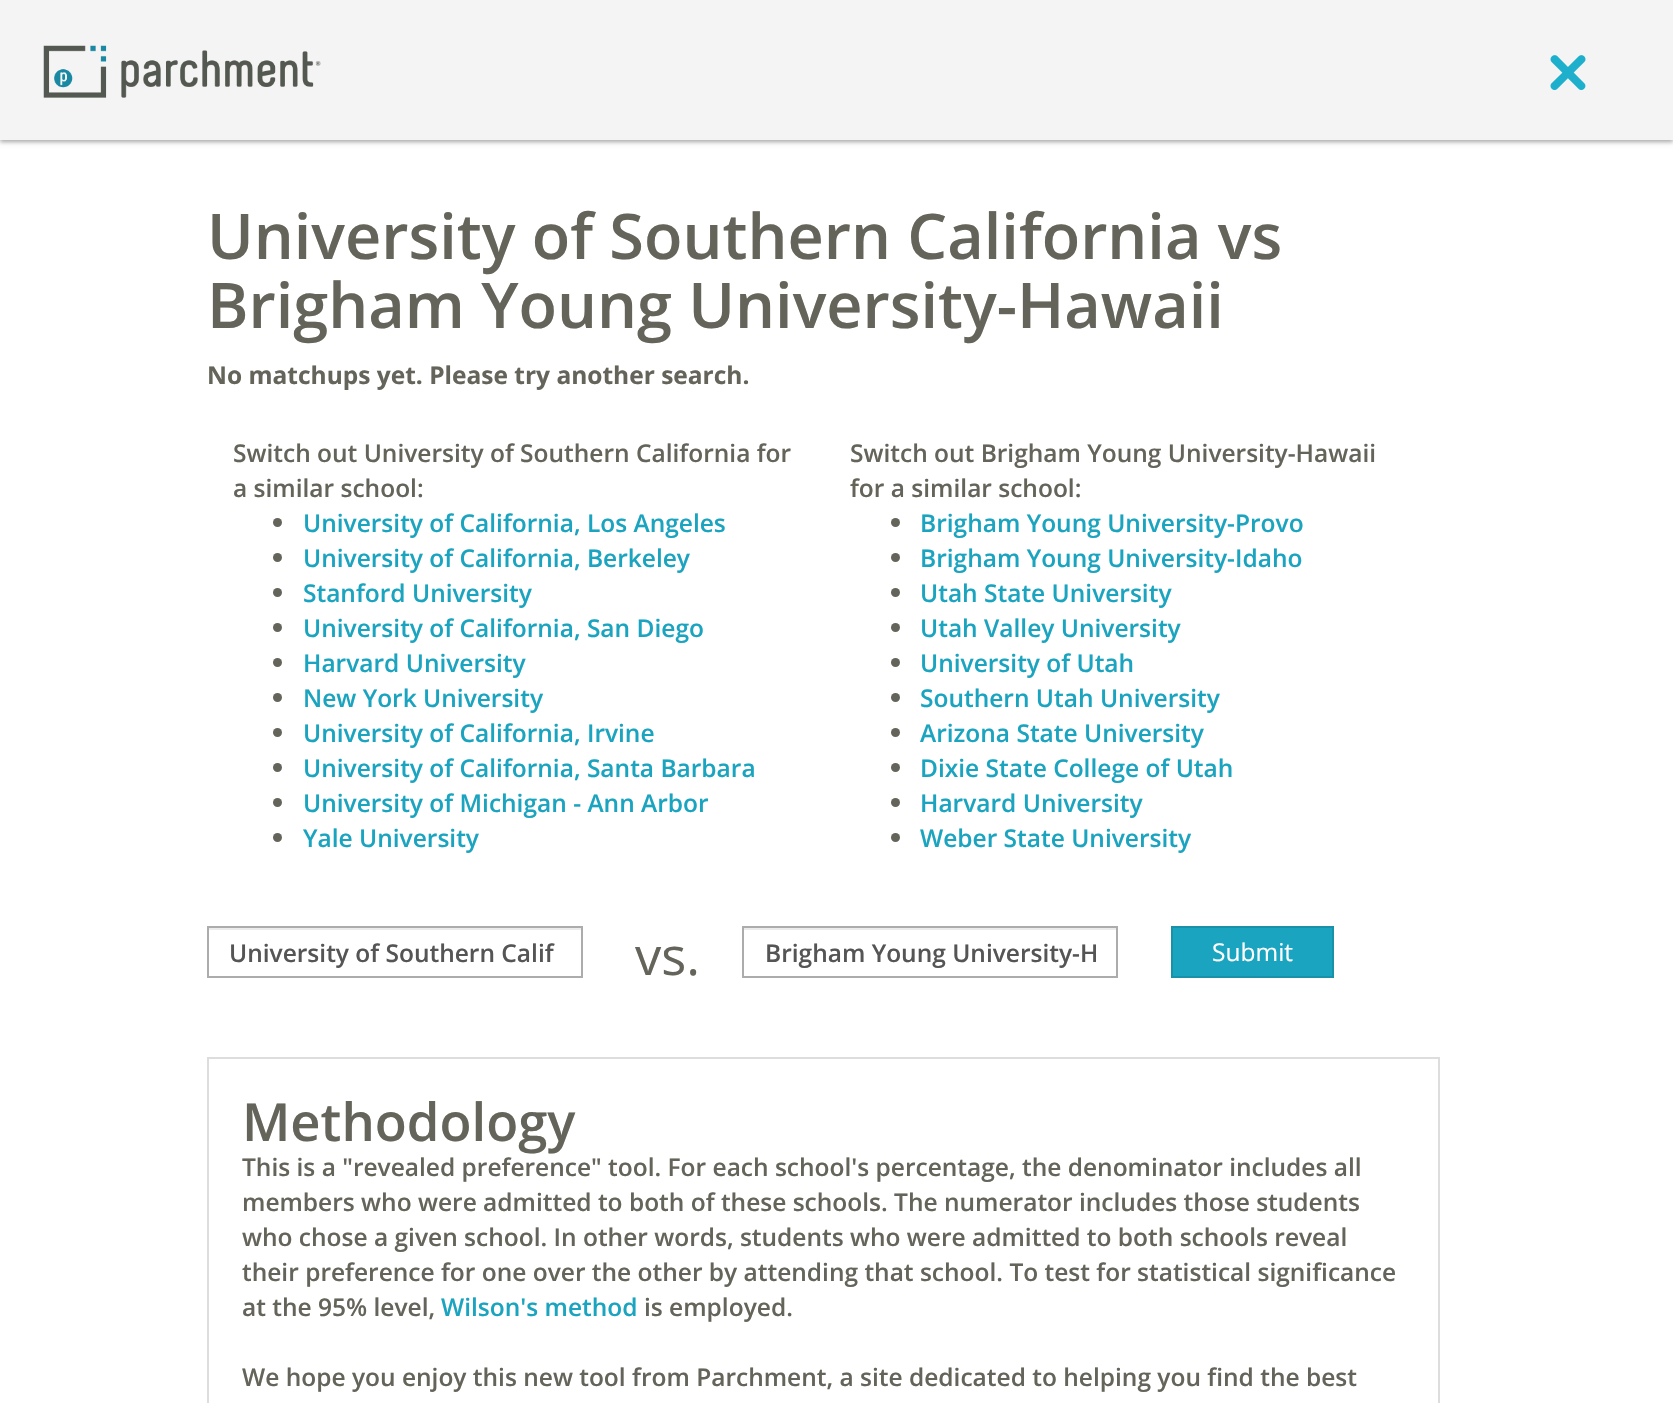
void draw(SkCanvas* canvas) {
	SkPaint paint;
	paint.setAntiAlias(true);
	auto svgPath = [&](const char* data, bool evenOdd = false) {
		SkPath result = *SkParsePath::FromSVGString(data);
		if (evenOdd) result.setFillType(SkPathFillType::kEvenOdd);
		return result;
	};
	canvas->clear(0xffffffff);
	paint.setColor(0x3d000000);
	paint.setMaskFilter(SkMaskFilter::MakeBlur(kNormal_SkBlurStyle, 2));
	canvas->drawRect(SkRect::MakeXYWH(0, 2, 1673, 140), paint);
	paint.setMaskFilter(nullptr);
	paint.setColor(0x1f000000);
	paint.setMaskFilter(SkMaskFilter::MakeBlur(kNormal_SkBlurStyle, 2.5));
	canvas->drawRect(SkRect::MakeXYWH(0, 2, 1673, 140), paint);
	paint.setMaskFilter(nullptr);
	paint.setColor(0xfff4f4f4);
	canvas->drawRect(SkRect::MakeXYWH(0, 0, 1673, 140), paint);
	canvas->drawImageRect(SkImages::DeferredFromEncodedData(SkData::MakeFromFileName("img1.png")), SkRect::MakeXYWH(43, 45, 278, 53), SkSamplingOptions());
	canvas->drawImageRect(SkImages::DeferredFromEncodedData(SkData::MakeFromFileName("img2.png")), SkRect::MakeXYWH(1550, 55, 36, 35), SkSamplingOptions());
	SkFont f1(fontMgr->matchFamilyStyle("Open Sans", SkFontStyle(600, SkFontStyle::kNormal_Width, SkFontStyle::kUpright_Slant)), 63);
	f1.setSubpixel(true);
	paint.setColor(0xff65645a);
	canvas->drawString("University of Southern California vs", 207, 259, f1, paint);
	canvas->drawString("Brigham Young University-Hawaii", 207, 328, f1, paint);
	SkFont f2(fontMgr->matchFamilyStyle("Open Sans", SkFontStyle::Bold()), 24.5);
	f2.setSubpixel(true);
	canvas->drawString("No matchups yet. Please try another search.", 207, 384, f2, paint);
	SkFont f3(fontMgr->matchFamilyStyle("Open Sans", SkFontStyle(600, SkFontStyle::kNormal_Width, SkFontStyle::kUpright_Slant)), 24.5);
	f3.setSubpixel(true);
	canvas->drawString("Switch out University of Southern California for", 233, 462, f3, paint);
	canvas->drawString("a similar school:", 233, 497, f3, paint);
	canvas->drawCircle(277.5, 522.5, 4.5, paint);
	paint.setColor(0xff1ba4bf);
	canvas->drawString("University of California, Los Angeles", 303, 532, f3, paint);
	paint.setColor(0xff65645a);
	canvas->drawCircle(277.5, 557.5, 4.5, paint);
	paint.setColor(0xff1ba4bf);
	canvas->drawString("University of California, Berkeley", 303, 567, f3, paint);
	paint.setColor(0xff65645a);
	canvas->drawCircle(277.5, 592.5, 4.5, paint);
	paint.setColor(0xff1ba4bf);
	canvas->drawString("Stanford University", 303, 602, f3, paint);
	paint.setColor(0xff65645a);
	canvas->drawCircle(277.5, 627.5, 4.5, paint);
	paint.setColor(0xff1ba4bf);
	canvas->drawString("University of California, San Diego", 303, 637, f3, paint);
	paint.setColor(0xff65645a);
	canvas->drawCircle(277.5, 662.5, 4.5, paint);
	paint.setColor(0xff1ba4bf);
	canvas->drawString("Harvard University", 303, 672, f3, paint);
	paint.setColor(0xff65645a);
	canvas->drawCircle(277.5, 697.5, 4.5, paint);
	paint.setColor(0xff1ba4bf);
	canvas->drawString("New York University", 303, 707, f3, paint);
	paint.setColor(0xff65645a);
	canvas->drawCircle(277.5, 732.5, 4.5, paint);
	paint.setColor(0xff1ba4bf);
	canvas->drawString("University of California, Irvine", 303, 742, f3, paint);
	paint.setColor(0xff65645a);
	canvas->drawCircle(277.5, 767.5, 4.5, paint);
	paint.setColor(0xff1ba4bf);
	canvas->drawString("University of California, Santa Barbara", 303, 777, f3, paint);
	paint.setColor(0xff65645a);
	canvas->drawCircle(277.5, 802.5, 4.5, paint);
	paint.setColor(0xff1ba4bf);
	canvas->drawString("University of Michigan - Ann Arbor", 303, 812, f3, paint);
	paint.setColor(0xff65645a);
	canvas->drawCircle(277.5, 837.5, 4.5, paint);
	paint.setColor(0xff1ba4bf);
	canvas->drawString("Yale University", 303, 847, f3, paint);
	paint.setColor(0xff65645a);
	canvas->drawString("Switch out Brigham Young University-Hawaii", 850, 462, f3, paint);
	canvas->drawString("for a similar school:", 850, 497, f3, paint);
	canvas->drawCircle(895.5, 522.5, 4.5, paint);
	paint.setColor(0xff1ba4bf);
	canvas->drawString("Brigham Young University-Provo", 920, 532, f3, paint);
	paint.setColor(0xff65645a);
	canvas->drawCircle(895.5, 557.5, 4.5, paint);
	paint.setColor(0xff1ba4bf);
	canvas->drawString("Brigham Young University-Idaho", 920, 567, f3, paint);
	paint.setColor(0xff65645a);
	canvas->drawCircle(895.5, 592.5, 4.5, paint);
	paint.setColor(0xff1ba4bf);
	canvas->drawString("Utah State University", 920, 602, f3, paint);
	paint.setColor(0xff65645a);
	canvas->drawCircle(895.5, 627.5, 4.5, paint);
	paint.setColor(0xff1ba4bf);
	canvas->drawString("Utah Valley University", 920, 637, f3, paint);
	paint.setColor(0xff65645a);
	canvas->drawCircle(895.5, 662.5, 4.5, paint);
	paint.setColor(0xff1ba4bf);
	canvas->drawString("University of Utah", 920, 672, f3, paint);
	paint.setColor(0xff65645a);
	canvas->drawCircle(895.5, 697.5, 4.5, paint);
	paint.setColor(0xff1ba4bf);
	canvas->drawString("Southern Utah University", 920, 707, f3, paint);
	paint.setColor(0xff65645a);
	canvas->drawCircle(895.5, 732.5, 4.5, paint);
	paint.setColor(0xff1ba4bf);
	canvas->drawString("Arizona State University", 920, 742, f3, paint);
	paint.setColor(0xff65645a);
	canvas->drawCircle(895.5, 767.5, 4.5, paint);
	paint.setColor(0xff1ba4bf);
	canvas->drawString("Dixie State College of Utah", 920, 777, f3, paint);
	paint.setColor(0xff65645a);
	canvas->drawCircle(895.5, 802.5, 4.5, paint);
	paint.setColor(0xff1ba4bf);
	canvas->drawString("Harvard University", 920, 812, f3, paint);
	paint.setColor(0xff65645a);
	canvas->drawCircle(895.5, 837.5, 4.5, paint);
	paint.setColor(0xff1ba4bf);
	canvas->drawString("Weber State University", 920, 847, f3, paint);
	paint.setColor(0xffececec);
	canvas->drawRect(SkRect::MakeXYWH(208, 928, 373, 2), paint);
	paint.setStroke(true);
	paint.setStrokeWidth(2);
	paint.setColor(0xffacacac);
	canvas->drawRect(SkRect::MakeXYWH(208, 927, 374, 50), paint);
	paint.setStroke(false);
	paint.setColor(0xff555555);
	canvas->drawString("University of Southern Calif", 229, 962, f3, paint);
	SkFont f4(fontMgr->matchFamilyStyle("Open Sans", SkFontStyle::Normal()), 52.5);
	f4.setSubpixel(true);
	paint.setColor(0xff65645a);
	canvas->drawString("vs.", 635, 975, f4, paint);
	paint.setColor(0xffececec);
	canvas->drawRect(SkRect::MakeXYWH(744, 928, 373, 2), paint);
	paint.setStroke(true);
	paint.setColor(0xffacacac);
	canvas->drawRect(SkRect::MakeXYWH(743, 927, 374, 50), paint);
	canvas->save();
	canvas->clipRect(SkRect::MakeXYWH(765, 936, 331, 34));
	paint.setStroke(false);
	paint.setColor(0xff555555);
	canvas->drawString("Brigham Young University-H", 765, 962, f3, paint);
	canvas->restore();
	paint.setColor(0xff1ba4bf);
	canvas->drawRect(SkRect::MakeXYWH(1172, 927, 161, 50), paint);
	paint.setStroke(true);
	paint.setColor(0xff1891a9);
	canvas->drawRect(SkRect::MakeXYWH(1172, 927, 161, 50), paint);
	SkFont f5(fontMgr->matchFamilyStyle("Open Sans", SkFontStyle::Normal()), 24.5);
	f5.setSubpixel(true);
	paint.setStroke(false);
	paint.setColor(0xffffffff);
	canvas->drawString("Submit", 1212, 961, f5, paint);
	paint.setColor(0xffdddddd);
	canvas->drawPath(svgPath("M207 1057V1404H209V1059H1438V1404H1440V1057Z"), paint);
	SkFont f6(fontMgr->matchFamilyStyle("Open Sans", SkFontStyle(600, SkFontStyle::kNormal_Width, SkFontStyle::kUpright_Slant)), 52.5);
	f6.setSubpixel(true);
	paint.setColor(0xff65645a);
	canvas->drawString("Methodology", 242, 1141, f6, paint);
	canvas->drawString("This is a \"revealed preference\" tool. For each school's percentage, the denominator includes all", 242, 1176, f3, paint);
	canvas->drawString("members who were admitted to both of these schools. The numerator includes those students", 242, 1211, f3, paint);
	canvas->drawString("who chose a given school. In other words, students who were admitted to both schools reveal", 242, 1246, f3, paint);
	canvas->drawString("their preference for one over the other by attending that school. To test for statistical significance", 242, 1281, f3, paint);
	canvas->drawString("at the 95% level,", 242, 1316, f3, paint);
	paint.setColor(0xff1ba4bf);
	canvas->drawString("Wilson's method", 441, 1316, f3, paint);
	paint.setColor(0xff65645a);
	canvas->drawString("is employed.", 644, 1316, f3, paint);
	canvas->drawString("We hope you enjoy this new tool from Parchment, a site dedicated to helping you find the best", 242, 1386, f3, paint);
}
